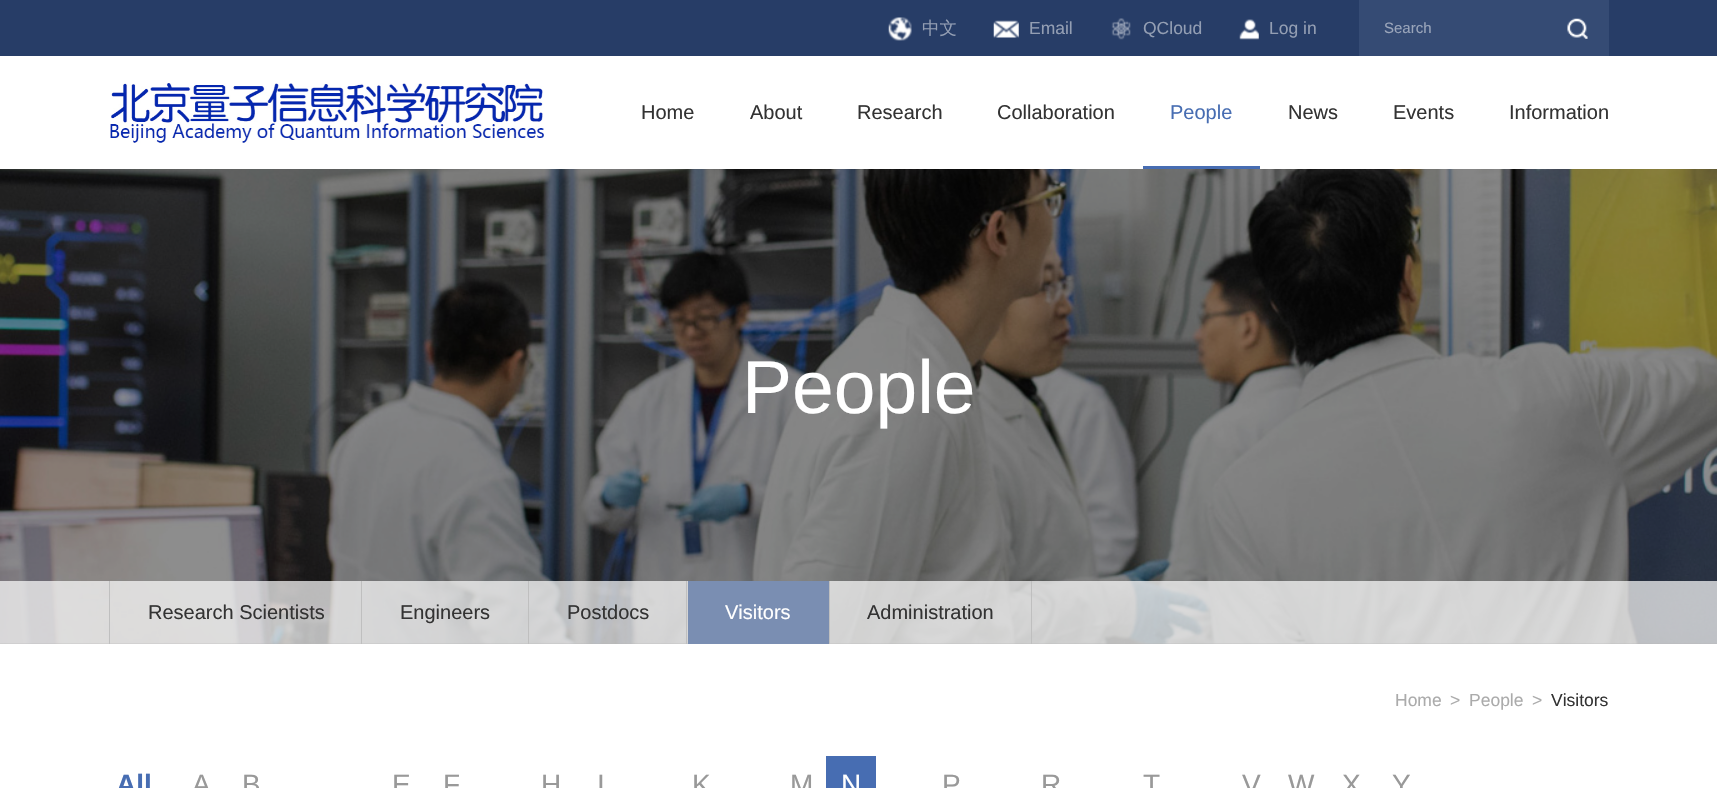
void draw(SkCanvas* canvas) {
	SkPaint paint;
	paint.setAntiAlias(true);
	canvas->clear(0xffffffff);
	paint.setColor(0xff273d67);
	canvas->drawRect(SkRect::MakeXYWH(0, 0, 1717, 56), paint);
	canvas->drawImageRect(SkImages::DeferredFromEncodedData(SkData::MakeFromFileName("img1.png")), SkRect::MakeXYWH(888, 17, 24, 24), SkSamplingOptions());
	SkFont f1(fontMgr->matchFamilyStyle("WenQuanYi Zen Hei", SkFontStyle(500, SkFontStyle::kNormal_Width, SkFontStyle::kUpright_Slant)), 17.5);
	f1.setSubpixel(true);
	paint.setColor(0xff939eb3);
	canvas->drawString("中文", 922, 34, f1, paint);
	canvas->drawImageRect(SkImages::DeferredFromEncodedData(SkData::MakeFromFileName("img2.png")), SkRect::MakeXYWH(993, 20, 26, 18), SkSamplingOptions());
	SkFont f2(fontMgr->matchFamilyStyle("Liberation Sans", SkFontStyle::Normal()), 17.5);
	f2.setSubpixel(true);
	canvas->drawString("Email", 1029, 34, f2, paint);
	canvas->drawImageRect(SkImages::DeferredFromEncodedData(SkData::MakeFromFileName("img3.png")), SkRect::MakeXYWH(1111, 18, 20, 22), SkSamplingOptions());
	canvas->drawString("QCloud", 1143, 34, f2, paint);
	canvas->drawImageRect(SkImages::DeferredFromEncodedData(SkData::MakeFromFileName("img4.png")), SkRect::MakeXYWH(1239, 19, 20, 21), SkSamplingOptions());
	canvas->drawString("Log in", 1269, 34, f2, paint);
	paint.setColor(0xff354b74);
	canvas->drawRect(SkRect::MakeXYWH(1359, 0, 250, 56), paint);
	SkFont f3(fontMgr->matchFamilyStyle("Liberation Sans", SkFontStyle::Normal()), 15);
	f3.setSubpixel(true);
	paint.setColor(0xff9aa5ba);
	canvas->drawString("Search", 1384, 33, f3, paint);
	canvas->drawImageRect(SkImages::DeferredFromEncodedData(SkData::MakeFromFileName("img5.png")), SkRect::MakeXYWH(1567, 18, 21, 21), SkSamplingOptions());
	canvas->drawImageRect(SkImages::DeferredFromEncodedData(SkData::MakeFromFileName("img6.png")), SkRect::MakeXYWH(110, 83, 434, 60), SkSamplingOptions());
	SkFont f4(fontMgr->matchFamilyStyle("Liberation Sans", SkFontStyle::Normal()), 20);
	f4.setSubpixel(true);
	paint.setColor(0xff333333);
	canvas->drawString("Home", 641, 119, f4, paint);
	canvas->drawString("About", 750, 119, f4, paint);
	canvas->drawString("Research", 857, 119, f4, paint);
	canvas->drawString("Collaboration", 997, 119, f4, paint);
	paint.setColor(0xff476db2);
	canvas->drawString("People", 1170, 119, f4, paint);
	canvas->drawRect(SkRect::MakeXYWH(1143, 166, 117, 3), paint);
	paint.setColor(0xff333333);
	canvas->drawString("News", 1288, 119, f4, paint);
	canvas->drawString("Events", 1393, 119, f4, paint);
	canvas->drawString("Information", 1509, 119, f4, paint);
	paint.setColor(0xff000000);
	canvas->drawRect(SkRect::MakeXYWH(0, 169, 1717, 475), paint);
	canvas->drawImageRect(SkImages::DeferredFromEncodedData(SkData::MakeFromFileName("img7.png")), SkRect::MakeXYWH(0, 169, 1717, 475), SkSamplingOptions());
	SkFont f5(fontMgr->matchFamilyStyle("Liberation Sans", SkFontStyle::Normal()), 75);
	f5.setSubpixel(true);
	paint.setColor(0xffffffff);
	canvas->drawString("People", 742, 413, f5, paint);
	paint.setColor(0xb3ffffff);
	canvas->drawRect(SkRect::MakeXYWH(0, 581, 1717, 63), paint);
	paint.setColor(0xffbfbfbf);
	canvas->drawRect(SkRect::MakeXYWH(361, 581, 1, 63), paint);
	canvas->drawRect(SkRect::MakeXYWH(109, 581, 1, 63), paint);
	paint.setColor(0xff333333);
	canvas->drawString("Research Scientists", 148, 619, f4, paint);
	paint.setColor(0xffbfbfbf);
	canvas->drawRect(SkRect::MakeXYWH(528, 581, 1, 63), paint);
	paint.setColor(0xff333333);
	canvas->drawString("Engineers", 400, 619, f4, paint);
	paint.setColor(0xffbfbfbf);
	canvas->drawRect(SkRect::MakeXYWH(686, 581, 1, 63), paint);
	paint.setColor(0xff333333);
	canvas->drawString("Postdocs", 567, 619, f4, paint);
	paint.setColor(0xff7a8eb2);
	canvas->drawRect(SkRect::MakeXYWH(688, 581, 141, 63), paint);
	paint.setColor(0xffbfbfbf);
	canvas->drawRect(SkRect::MakeXYWH(829, 581, 1, 63), paint);
	paint.setColor(0xffffffff);
	canvas->drawString("Visitors", 725, 619, f4, paint);
	paint.setColor(0xffbfbfbf);
	canvas->drawRect(SkRect::MakeXYWH(1031, 581, 1, 63), paint);
	paint.setColor(0xff333333);
	canvas->drawString("Administration", 867, 619, f4, paint);
	paint.setColor(0xffababab);
	canvas->drawString("Home", 1395, 706, f2, paint);
	canvas->drawString(">", 1450, 706, f2, paint);
	canvas->drawString("People", 1469, 706, f2, paint);
	canvas->drawString(">", 1532, 706, f2, paint);
	paint.setColor(0xff333333);
	canvas->drawString("Visitors", 1551, 706, f2, paint);
	SkFont f6(fontMgr->matchFamilyStyle("Liberation Sans", SkFontStyle::Bold()), 28);
	f6.setSubpixel(true);
	paint.setColor(0xff476db2);
	canvas->drawString("All", 116, 794, f6, paint);
	SkFont f7(fontMgr->matchFamilyStyle("Liberation Sans", SkFontStyle::Normal()), 28);
	f7.setSubpixel(true);
	paint.setColor(0xff999999);
	canvas->drawString("A", 192, 794, f7, paint);
	canvas->drawString("B", 242, 794, f7, paint);
	canvas->drawString("E", 392, 794, f7, paint);
	canvas->drawString("F", 443, 794, f7, paint);
	canvas->drawString("H", 541, 794, f7, paint);
	canvas->drawString("I", 597, 794, f7, paint);
	canvas->drawString("K", 692, 794, f7, paint);
	canvas->drawString("M", 790, 794, f7, paint);
	paint.setColor(0xff476db2);
	canvas->drawRect(SkRect::MakeXYWH(826, 756, 50, 32), paint);
	paint.setColor(0xffffffff);
	canvas->drawString("N", 841, 794, f7, paint);
	paint.setColor(0xff999999);
	canvas->drawString("P", 942, 794, f7, paint);
	canvas->drawString("R", 1041, 794, f7, paint);
	canvas->drawString("T", 1143, 794, f7, paint);
	canvas->drawString("V", 1242, 794, f7, paint);
	canvas->drawString("W", 1288, 794, f7, paint);
	canvas->drawString("X", 1342, 794, f7, paint);
	canvas->drawString("Y", 1392, 794, f7, paint);
}
